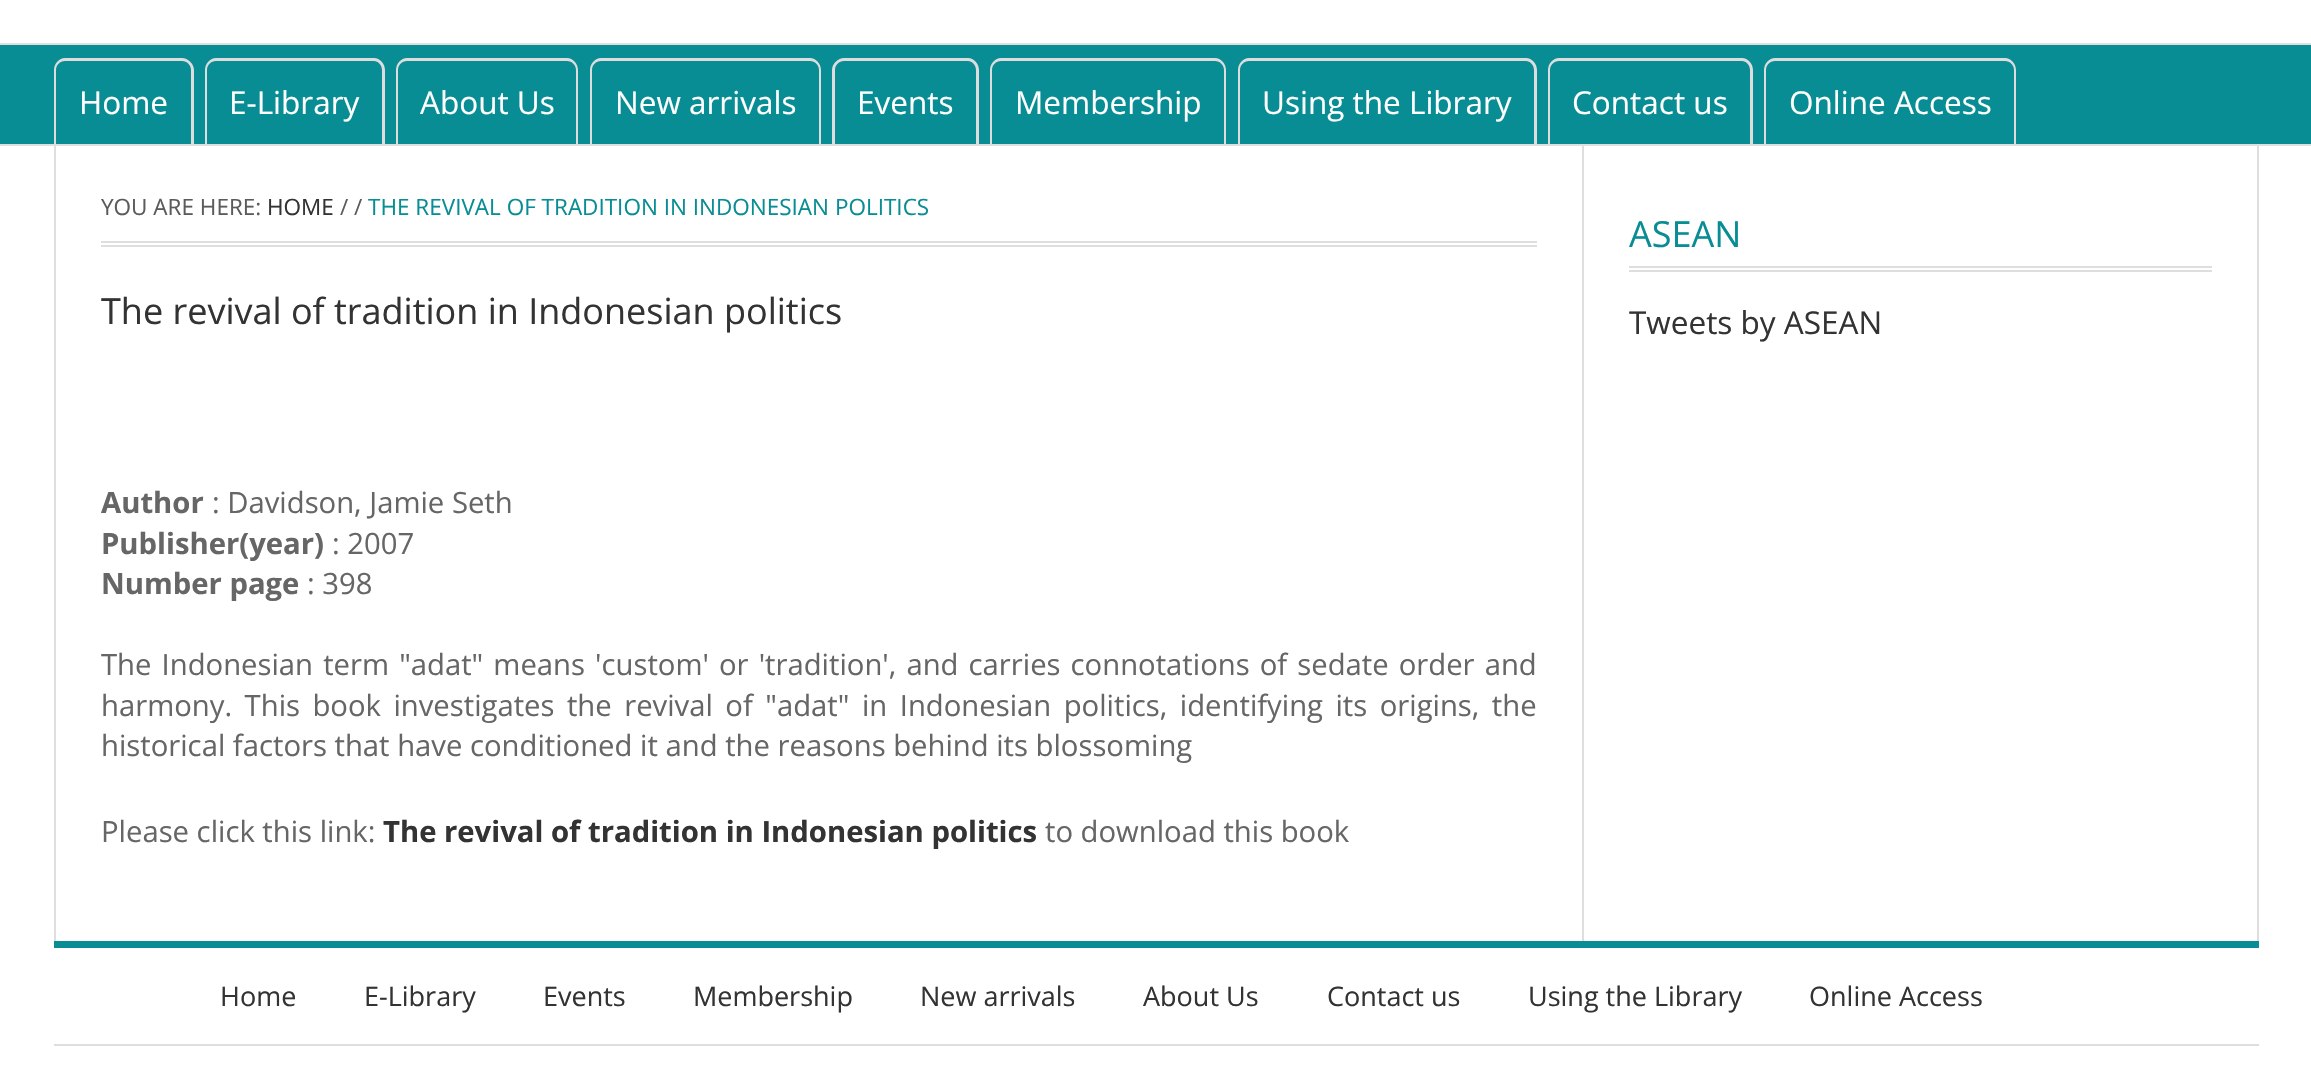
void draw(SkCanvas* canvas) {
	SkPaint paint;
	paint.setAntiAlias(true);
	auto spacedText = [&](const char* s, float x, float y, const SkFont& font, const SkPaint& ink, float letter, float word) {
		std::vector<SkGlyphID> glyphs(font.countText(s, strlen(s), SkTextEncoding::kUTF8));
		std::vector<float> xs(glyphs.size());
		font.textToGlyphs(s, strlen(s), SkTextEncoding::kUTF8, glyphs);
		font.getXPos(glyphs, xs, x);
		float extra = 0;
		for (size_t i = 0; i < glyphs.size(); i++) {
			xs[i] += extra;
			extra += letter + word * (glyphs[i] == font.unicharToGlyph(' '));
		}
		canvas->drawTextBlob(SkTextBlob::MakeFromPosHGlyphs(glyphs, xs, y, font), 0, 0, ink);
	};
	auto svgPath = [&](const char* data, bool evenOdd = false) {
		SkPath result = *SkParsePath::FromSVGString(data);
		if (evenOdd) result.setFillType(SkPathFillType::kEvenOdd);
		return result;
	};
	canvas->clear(0xffffffff);
	paint.setColor(0xffdfdfdf);
	canvas->drawRect(SkRect::MakeXYWH(0, 43, 2311, 2), paint);
	paint.setColor(0xff098d94);
	canvas->drawRect(SkRect::MakeXYWH(0, 45, 2311, 99), paint);
	paint.setColor(0xffdddddd);
	canvas->drawPath(svgPath("M65 58H182C188 58 194 64 194 70V144H54V70C54 64 59 58 65 58ZM65 61H182C187 61 191 65 191 70V144H56V70C56 65 60 61 65 61Z", true), paint);
	SkFont f1(fontMgr->matchFamilyStyle("Open Sans", SkFontStyle::Normal()), 31.5);
	f1.setSubpixel(true);
	paint.setColor(0xffffffff);
	canvas->drawString("Home", 79, 114, f1, paint);
	paint.setColor(0xffdddddd);
	canvas->drawPath(svgPath("M216 58H374C380 58 385 64 385 70V144H205V70C205 64 210 58 216 58ZM216 61H374C378 61 382 65 382 70V144H207V70C207 65 211 61 216 61Z", true), paint);
	paint.setColor(0xffffffff);
	canvas->drawString("E-Library", 229, 114, f1, paint);
	paint.setColor(0xffdddddd);
	canvas->drawPath(svgPath("M407 58H567C573 58 578 64 578 70V144H396V70C396 64 401 58 407 58ZM407 61H567C572 61 576 65 576 70V144H398V70C398 65 402 61 407 61Z", true), paint);
	paint.setColor(0xffffffff);
	canvas->drawString("About Us", 420, 114, f1, paint);
	paint.setColor(0xffdddddd);
	canvas->drawPath(svgPath("M601 58H810C816 58 821 64 821 70V144H590V70C590 64 595 58 601 58ZM601 61H810C815 61 819 65 819 70V144H592V70C592 65 596 61 601 61Z", true), paint);
	paint.setColor(0xffffffff);
	canvas->drawString("New arrivals", 615, 114, f1, paint);
	paint.setColor(0xffdddddd);
	canvas->drawPath(svgPath("M844 58H968C974 58 979 64 979 70V144H832V70C832 64 838 58 844 58ZM844 61H968C972 61 976 65 976 70V144H835V70C835 65 839 61 844 61Z", true), paint);
	paint.setColor(0xffffffff);
	canvas->drawString("Events", 857, 114, f1, paint);
	paint.setColor(0xffdddddd);
	canvas->drawPath(svgPath("M1001 58H1215C1221 58 1226 64 1226 70V144H990V70C990 64 995 58 1001 58ZM1001 61H1215C1220 61 1224 65 1224 70V144H992V70C992 65 996 61 1001 61Z", true), paint);
	paint.setColor(0xffffffff);
	canvas->drawString("Membership", 1015, 114, f1, paint);
	paint.setColor(0xffdddddd);
	canvas->drawPath(svgPath("M1249 58H1526C1532 58 1537 64 1537 70V144H1238V70C1238 64 1243 58 1249 58ZM1249 61H1526C1530 61 1534 65 1534 70V144H1240V70C1240 65 1244 61 1249 61Z", true), paint);
	paint.setColor(0xffffffff);
	canvas->drawString("Using the Library", 1262, 114, f1, paint);
	paint.setColor(0xffdddddd);
	canvas->drawPath(svgPath("M1559 58H1742C1748 58 1753 64 1753 70V144H1548V70C1548 64 1553 58 1559 58ZM1559 61H1742C1746 61 1750 65 1750 70V144H1550V70C1550 65 1554 61 1559 61Z", true), paint);
	paint.setColor(0xffffffff);
	canvas->drawString("Contact us", 1572, 114, f1, paint);
	paint.setColor(0xffdddddd);
	canvas->drawPath(svgPath("M1775 58H2005C2011 58 2016 64 2016 70V144H1764V70C1764 64 1769 58 1775 58ZM1775 61H2005C2010 61 2014 65 2014 70V144H1766V70C1766 65 1770 61 1775 61Z", true), paint);
	paint.setColor(0xffffffff);
	canvas->drawString("Online Access", 1789, 114, f1, paint);
	paint.setColor(0xffdfdfdf);
	canvas->drawRect(SkRect::MakeXYWH(0, 144, 2311, 2), paint);
	paint.setColor(0xffdedede);
	canvas->drawRect(SkRect::MakeXYWH(2257, 146, 2, 795), paint);
	canvas->drawRect(SkRect::MakeXYWH(54, 146, 2, 795), paint);
	canvas->drawRect(SkRect::MakeXYWH(1582, 146, 2, 795), paint);
	canvas->drawRect(SkRect::MakeXYWH(101, 241, 1436, 2), paint);
	canvas->drawRect(SkRect::MakeXYWH(101, 245, 1436, 2), paint);
	SkFont f2(fontMgr->matchFamilyStyle("Open Sans", SkFontStyle::Normal()), 22.5);
	f2.setSubpixel(true);
	paint.setColor(0xff5b5b5b);
	canvas->drawString("YOU ARE HERE:", 101, 215, f2, paint);
	paint.setColor(0xff333333);
	canvas->drawString("HOME", 267, 215, f2, paint);
	paint.setColor(0xff5b5b5b);
	canvas->drawString("/ /", 340, 215, f2, paint);
	paint.setColor(0xff098d94);
	canvas->drawString("THE REVIVAL OF TRADITION IN INDONESIAN POLITICS", 368, 215, f2, paint);
	SkFont f3(fontMgr->matchFamilyStyle("Open Sans", SkFontStyle::Normal()), 36);
	f3.setSubpixel(true);
	paint.setColor(0xff333333);
	canvas->drawString("The revival of tradition in Indonesian politics", 101, 324, f3, paint);
	SkFont f4(fontMgr->matchFamilyStyle("Open Sans", SkFontStyle::Bold()), 29.25);
	f4.setSubpixel(true);
	paint.setColor(0xff666666);
	canvas->drawString("Author", 101, 513, f4, paint);
	SkFont f5(fontMgr->matchFamilyStyle("Open Sans", SkFontStyle::Normal()), 29.25);
	f5.setSubpixel(true);
	canvas->drawString(": Davidson, Jamie Seth", 212, 513, f5, paint);
	canvas->drawString("Publisher(year)", 101, 554, f4, paint);
	canvas->drawString(": 2007", 332, 554, f5, paint);
	canvas->drawString("Number page", 101, 594, f4, paint);
	canvas->drawString(": 398", 307, 594, f5, paint);
	spacedText("The Indonesian term \"adat\" means 'custom' or 'tradition', and carries connotations of sedate order and", 101, 675, f5, paint, 0, 2.5);
	spacedText("harmony. This book investigates the revival of \"adat\" in Indonesian politics, identifying its origins, the", 101, 716, f5, paint, 0, 4.9);
	canvas->drawString("historical factors that have conditioned it and the reasons behind its blossoming", 101, 756, f5, paint);
	canvas->drawString("Please click this link:", 101, 842, f5, paint);
	paint.setColor(0xff333333);
	canvas->drawString("The revival of tradition in Indonesian politics", 383, 842, f4, paint);
	paint.setColor(0xff666666);
	canvas->drawString("to download this book", 1045, 842, f5, paint);
	paint.setColor(0xffdedede);
	canvas->drawRect(SkRect::MakeXYWH(1629, 266, 583, 2), paint);
	canvas->drawRect(SkRect::MakeXYWH(1629, 270, 583, 2), paint);
	paint.setColor(0xff098d94);
	canvas->drawString("ASEAN", 1629, 247, f3, paint);
	paint.setColor(0xff333333);
	canvas->drawString("Tweets by ASEAN", 1629, 334, f1, paint);
	paint.setColor(0xff098d94);
	canvas->drawRect(SkRect::MakeXYWH(54, 941, 2205, 7), paint);
	paint.setColor(0xffdedede);
	canvas->drawRect(SkRect::MakeXYWH(54, 1044, 2205, 2), paint);
	SkFont f6(fontMgr->matchFamilyStyle("Open Sans", SkFontStyle::Normal()), 27);
	f6.setSubpixel(true);
	paint.setColor(0xff333333);
	canvas->drawString("Home", 220, 1006, f6, paint);
	canvas->drawString("E-Library", 364, 1006, f6, paint);
	canvas->drawString("Events", 543, 1006, f6, paint);
	canvas->drawString("Membership", 693, 1006, f6, paint);
	canvas->drawString("New arrivals", 920, 1006, f6, paint);
	canvas->drawString("About Us", 1143, 1006, f6, paint);
	canvas->drawString("Contact us", 1327, 1006, f6, paint);
	canvas->drawString("Using the Library", 1528, 1006, f6, paint);
	canvas->drawString("Online Access", 1809, 1006, f6, paint);
}
